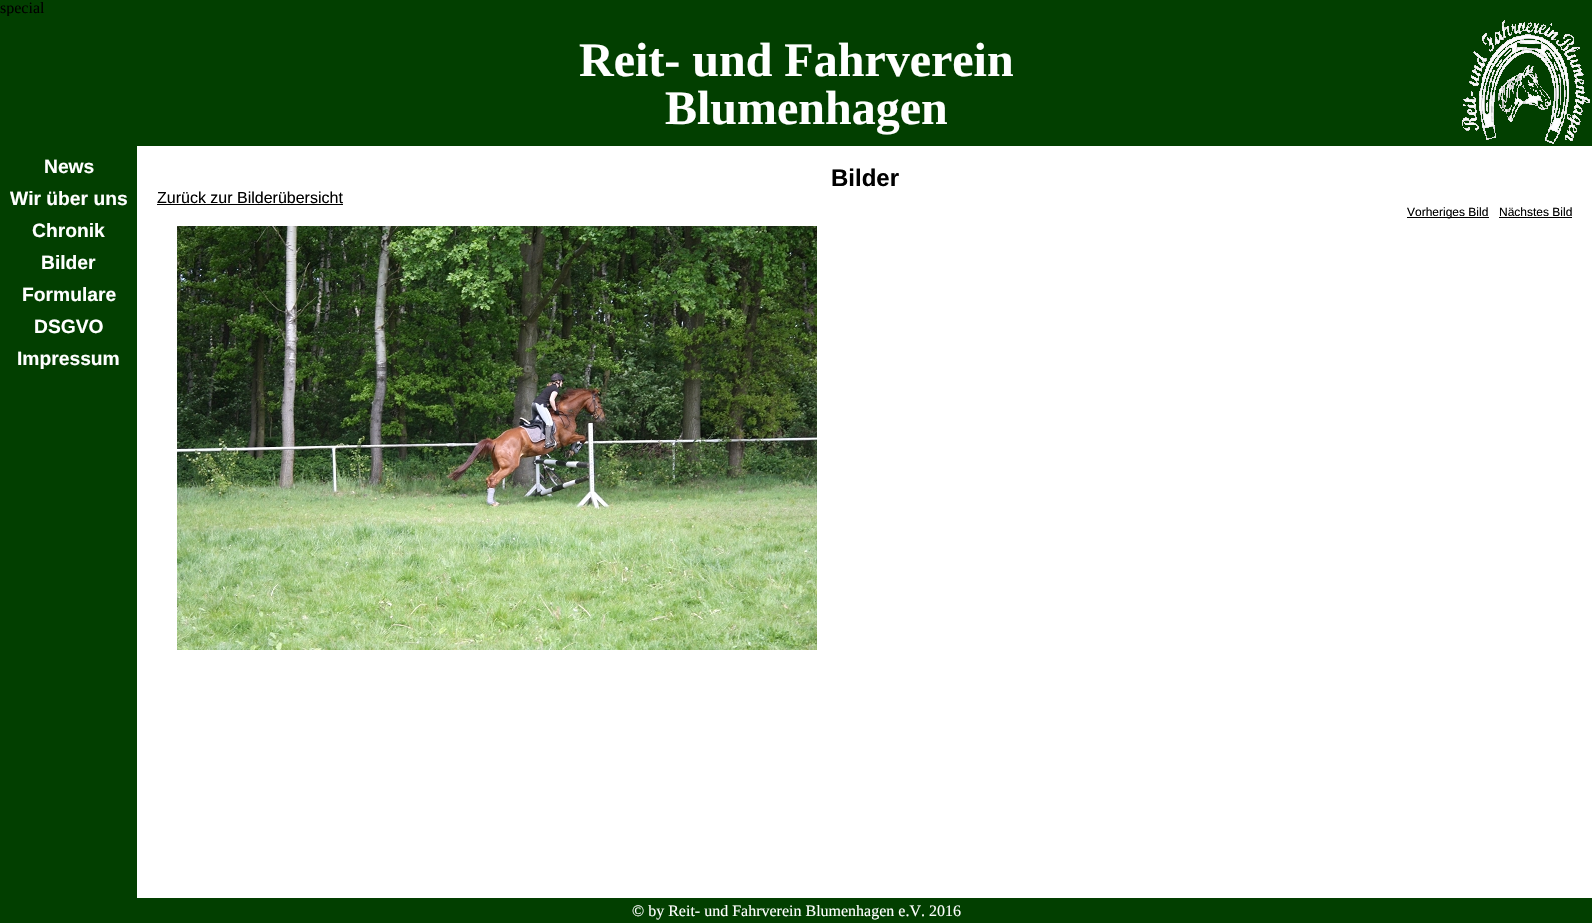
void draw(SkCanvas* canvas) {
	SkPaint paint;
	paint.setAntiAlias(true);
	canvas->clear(0xff023f00);
	SkFont f1(fontMgr->matchFamilyStyle("Liberation Serif", SkFontStyle::Normal()), 16);
	f1.setSubpixel(true);
	paint.setColor(0xff000000);
	canvas->drawString("special", 0, 13, f1, paint);
	paint.setColor(0xff023f00);
	canvas->drawRect(SkRect::MakeXYWH(6, 16, 4, 1), paint);
	canvas->drawImageRect(SkImages::DeferredFromEncodedData(SkData::MakeFromFileName("img1.png")), SkRect::MakeXYWH(1462, 20, 128, 124), SkSamplingOptions());
	SkFont f2(fontMgr->matchFamilyStyle("Liberation Serif", SkFontStyle::Bold()), 48);
	f2.setSubpixel(true);
	paint.setColor(0xffffffff);
	canvas->drawString("Reit- und Fahrverein", 579, 76, f2, paint);
	canvas->drawString("Blumenhagen", 665, 124, f2, paint);
	SkFont f3(fontMgr->matchFamilyStyle("Liberation Sans", SkFontStyle::Bold()), 19.25);
	f3.setSubpixel(true);
	canvas->drawString("News", 44, 173, f3, paint);
	canvas->drawString("Wir über uns", 10, 205, f3, paint);
	canvas->drawString("Chronik", 32, 237, f3, paint);
	canvas->drawString("Bilder", 41, 269, f3, paint);
	canvas->drawString("Formulare", 22, 301, f3, paint);
	canvas->drawString("DSGVO", 34, 333, f3, paint);
	canvas->drawString("Impressum", 17, 365, f3, paint);
	canvas->drawRect(SkRect::MakeXYWH(137, 146, 1455, 752), paint);
	SkFont f4(fontMgr->matchFamilyStyle("Liberation Sans", SkFontStyle::Bold()), 24);
	f4.setSubpixel(true);
	paint.setColor(0xff000000);
	canvas->drawString("Bilder", 831, 186, f4, paint);
	SkFont f5(fontMgr->matchFamilyStyle("Liberation Sans", SkFontStyle::Normal()), 16);
	f5.setSubpixel(true);
	canvas->drawString("Zurück zur Bilderübersicht", 157, 203, f5, paint);
	canvas->drawRect(SkRect::MakeXYWH(157, 204, 186, 1), paint);
	canvas->drawRect(SkRect::MakeXYWH(1407, 217, 82, 1), paint);
	SkFont f6(fontMgr->matchFamilyStyle("Liberation Sans", SkFontStyle::Normal()), 12);
	f6.setSubpixel(true);
	canvas->drawString("Vorheriges Bild", 1407, 216, f6, paint);
	canvas->drawString("Nächstes Bild", 1499, 216, f6, paint);
	canvas->drawRect(SkRect::MakeXYWH(1499, 217, 73, 1), paint);
	canvas->drawImageRect(SkImages::DeferredFromEncodedData(SkData::MakeFromFileName("img2.png")), SkRect::MakeXYWH(177, 226, 640, 424), SkSamplingOptions());
	paint.setColor(0xffffffff);
	canvas->drawString("© by Reit- und Fahrverein Blumenhagen e.V. 2016", 632, 916, f1, paint);
}
